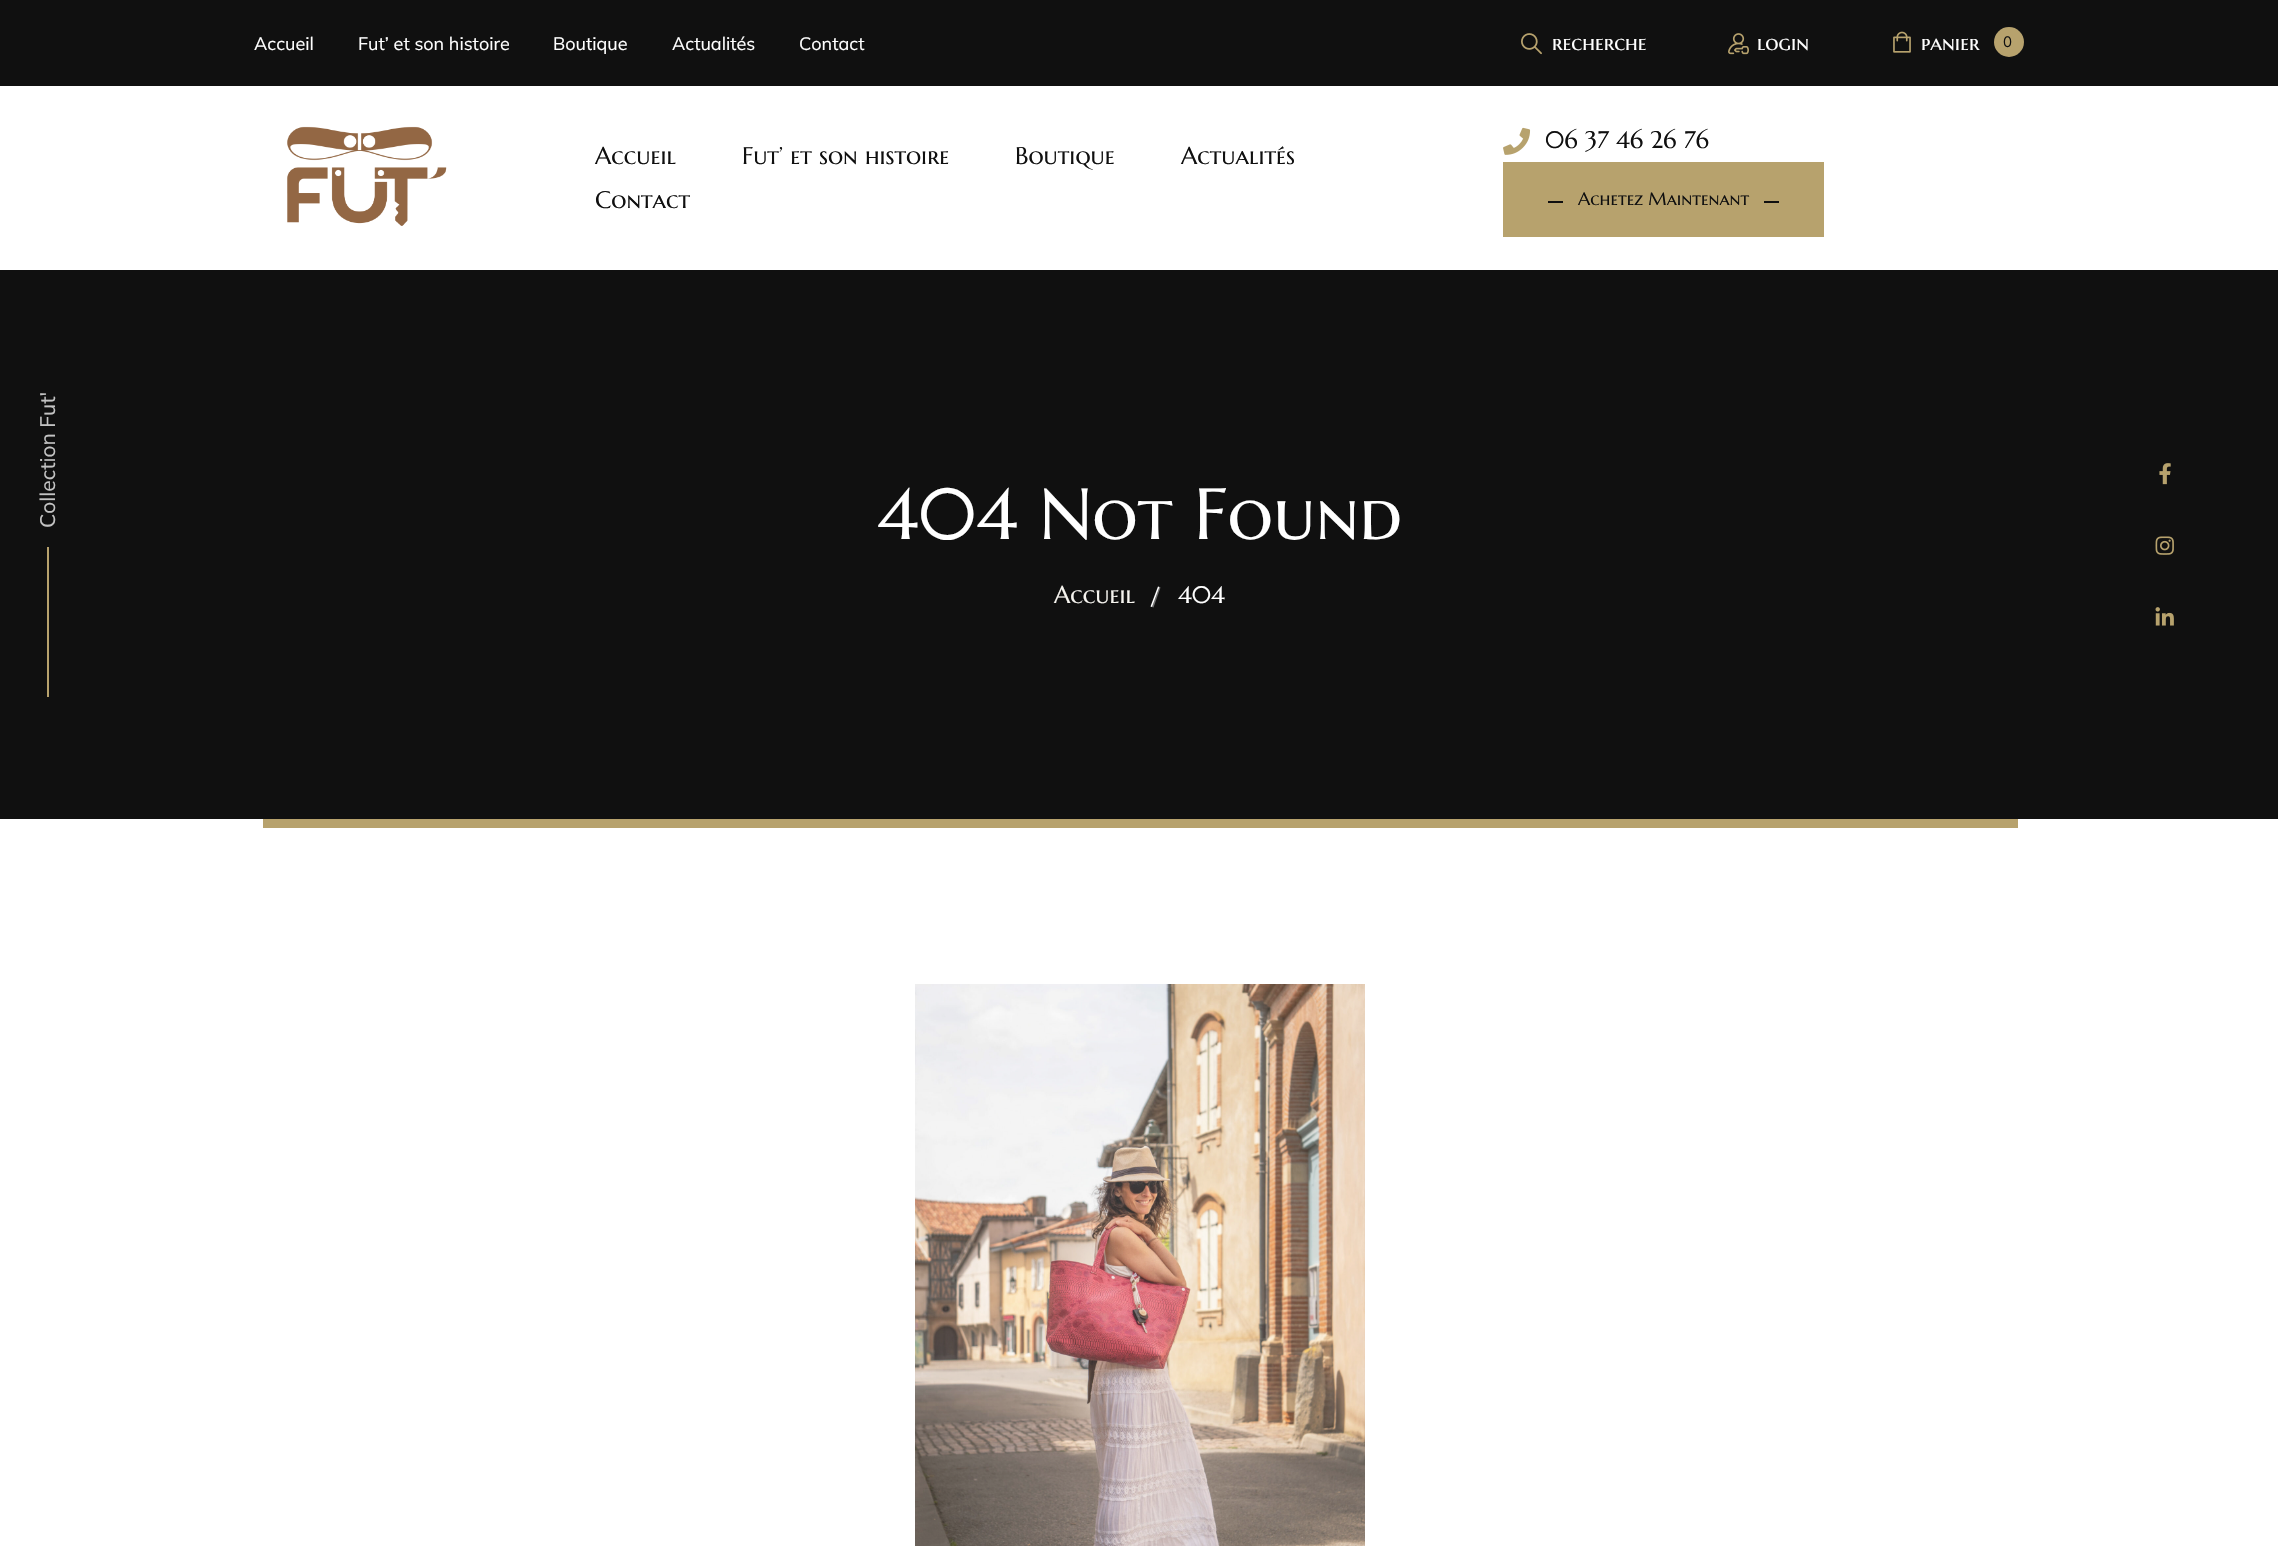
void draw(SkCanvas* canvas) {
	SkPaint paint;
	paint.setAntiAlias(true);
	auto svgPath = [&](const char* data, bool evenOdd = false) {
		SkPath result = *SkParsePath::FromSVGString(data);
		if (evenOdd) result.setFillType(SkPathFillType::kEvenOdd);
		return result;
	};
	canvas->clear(0xffffffff);
	paint.setColor(0xff101010);
	canvas->drawRect(SkRect::MakeXYWH(0, 0, 2278, 819), paint);
	SkFont f1(fontMgr->matchFamilyStyle("Mulish", SkFontStyle::Normal()), 18);
	f1.setSubpixel(true);
	paint.setColor(0xffffffff);
	canvas->drawString("Accueil", 254, 50, f1, paint);
	canvas->drawString("Fut’ et son histoire", 358, 50, f1, paint);
	canvas->drawString("Boutique", 553, 50, f1, paint);
	canvas->drawString("Actualités", 672, 50, f1, paint);
	canvas->drawString("Contact", 799, 50, f1, paint);
	canvas->drawImageRect(SkImages::DeferredFromEncodedData(SkData::MakeFromFileName("img1.png")), SkRect::MakeXYWH(1521, 33, 21, 22), SkSamplingOptions());
	SkFont f2(fontMgr->matchFamilyStyle("Marcellus SC", SkFontStyle::Normal()), 21);
	f2.setSubpixel(true);
	canvas->drawString("recherche", 1552, 50, f2, paint);
	canvas->drawImageRect(SkImages::DeferredFromEncodedData(SkData::MakeFromFileName("img2.png")), SkRect::MakeXYWH(1728, 33, 21, 22), SkSamplingOptions());
	canvas->drawString("login", 1757, 50, f2, paint);
	canvas->drawImageRect(SkImages::DeferredFromEncodedData(SkData::MakeFromFileName("img3.png")), SkRect::MakeXYWH(1893, 31, 18, 22), SkSamplingOptions());
	canvas->drawString("panier", 1921, 50, f2, paint);
	paint.setColor(0xffb7a26d);
	canvas->drawCircle(2009, 42, 15, paint);
	SkFont f3(fontMgr->matchFamilyStyle("Mulish", SkFontStyle::Normal()), 15);
	f3.setSubpixel(true);
	paint.setColor(0xff101010);
	canvas->drawString("0", 2003, 47, f3, paint);
	paint.setColor(0xffffffff);
	canvas->drawRect(SkRect::MakeXYWH(0, 86, 2278, 184), paint);
	canvas->drawImageRect(SkImages::DeferredFromEncodedData(SkData::MakeFromFileName("img4.png")), SkRect::MakeXYWH(287, 126, 160, 100), SkSamplingOptions());
	SkFont f4(fontMgr->matchFamilyStyle("Marcellus SC", SkFontStyle::Normal()), 24);
	f4.setSubpixel(true);
	paint.setColor(0xff101010);
	canvas->drawString("Accueil", 595, 164, f4, paint);
	canvas->drawString("Fut’ et son histoire", 742, 164, f4, paint);
	canvas->drawString("Boutique", 1015, 164, f4, paint);
	canvas->drawString("Actualités", 1181, 164, f4, paint);
	canvas->drawString("Contact", 595, 208, f4, paint);
	canvas->drawImageRect(SkImages::DeferredFromEncodedData(SkData::MakeFromFileName("img5.png")), SkRect::MakeXYWH(1503, 127, 28, 28), SkSamplingOptions());
	canvas->drawString("06 37 46 26 76", 1545, 148, f4, paint);
	paint.setColor(0xffb7a26d);
	canvas->drawRect(SkRect::MakeXYWH(1503, 162, 321, 75), paint);
	paint.setColor(0xff101010);
	canvas->drawRect(SkRect::MakeXYWH(1548, 201, 15, 2), paint);
	SkFont f5(fontMgr->matchFamilyStyle("Marcellus SC", SkFontStyle::Normal()), 18);
	f5.setSubpixel(true);
	canvas->drawString("Achetez Maintenant", 1578, 205, f5, paint);
	canvas->drawRect(SkRect::MakeXYWH(1764, 201, 15, 2), paint);
	SkFont f6(fontMgr->matchFamilyStyle("Mulish", SkFontStyle::Normal()), 21);
	f6.setSubpixel(true);
	paint.setColor(0xffc3c3c3);
	canvas->save();
	canvas->rotate(-90, 55, 528);
	canvas->drawString("Collection Fut'", 55, 528, f6, paint);
	canvas->restore();
	paint.setColor(0xffb7a26d);
	canvas->drawRect(SkRect::MakeXYWH(47, 547, 2, 150), paint);
	SkFont f7(fontMgr->matchFamilyStyle("Marcellus SC", SkFontStyle::Normal()), 72);
	f7.setSubpixel(true);
	paint.setColor(0xffffffff);
	canvas->drawString("404 Not Found", 877, 539, f7, paint);
	paint.setColor(0xfff6f4ef);
	canvas->drawString("Accueil", 1054, 603, f4, paint);
	paint.setColor(0xff707070);
	canvas->drawPath(svgPath("M1159.5 587L1160.5 587.5L1153.5 607.5L1152 607Z"), paint);
	paint.setColor(0xffffffff);
	canvas->drawPath(svgPath("M1158 586.5L1159.5 587L1152 607L1150.5 606.5Z"), paint);
	canvas->drawString("404", 1178, 603, f4, paint);
	paint.setColor(0xffb7a26d);
	canvas->drawRect(SkRect::MakeXYWH(263, 819, 1755, 9), paint);
	canvas->drawImageRect(SkImages::DeferredFromEncodedData(SkData::MakeFromFileName("img6.png")), SkRect::MakeXYWH(2159, 463, 12, 22), SkSamplingOptions());
	canvas->drawImageRect(SkImages::DeferredFromEncodedData(SkData::MakeFromFileName("img7.png")), SkRect::MakeXYWH(2155, 536, 19, 19), SkSamplingOptions());
	canvas->drawImageRect(SkImages::DeferredFromEncodedData(SkData::MakeFromFileName("img8.png")), SkRect::MakeXYWH(2155, 607, 19, 19), SkSamplingOptions());
	canvas->drawImageRect(SkImages::DeferredFromEncodedData(SkData::MakeFromFileName("img9.png")), SkRect::MakeXYWH(915, 984, 450, 562), SkSamplingOptions());
}
